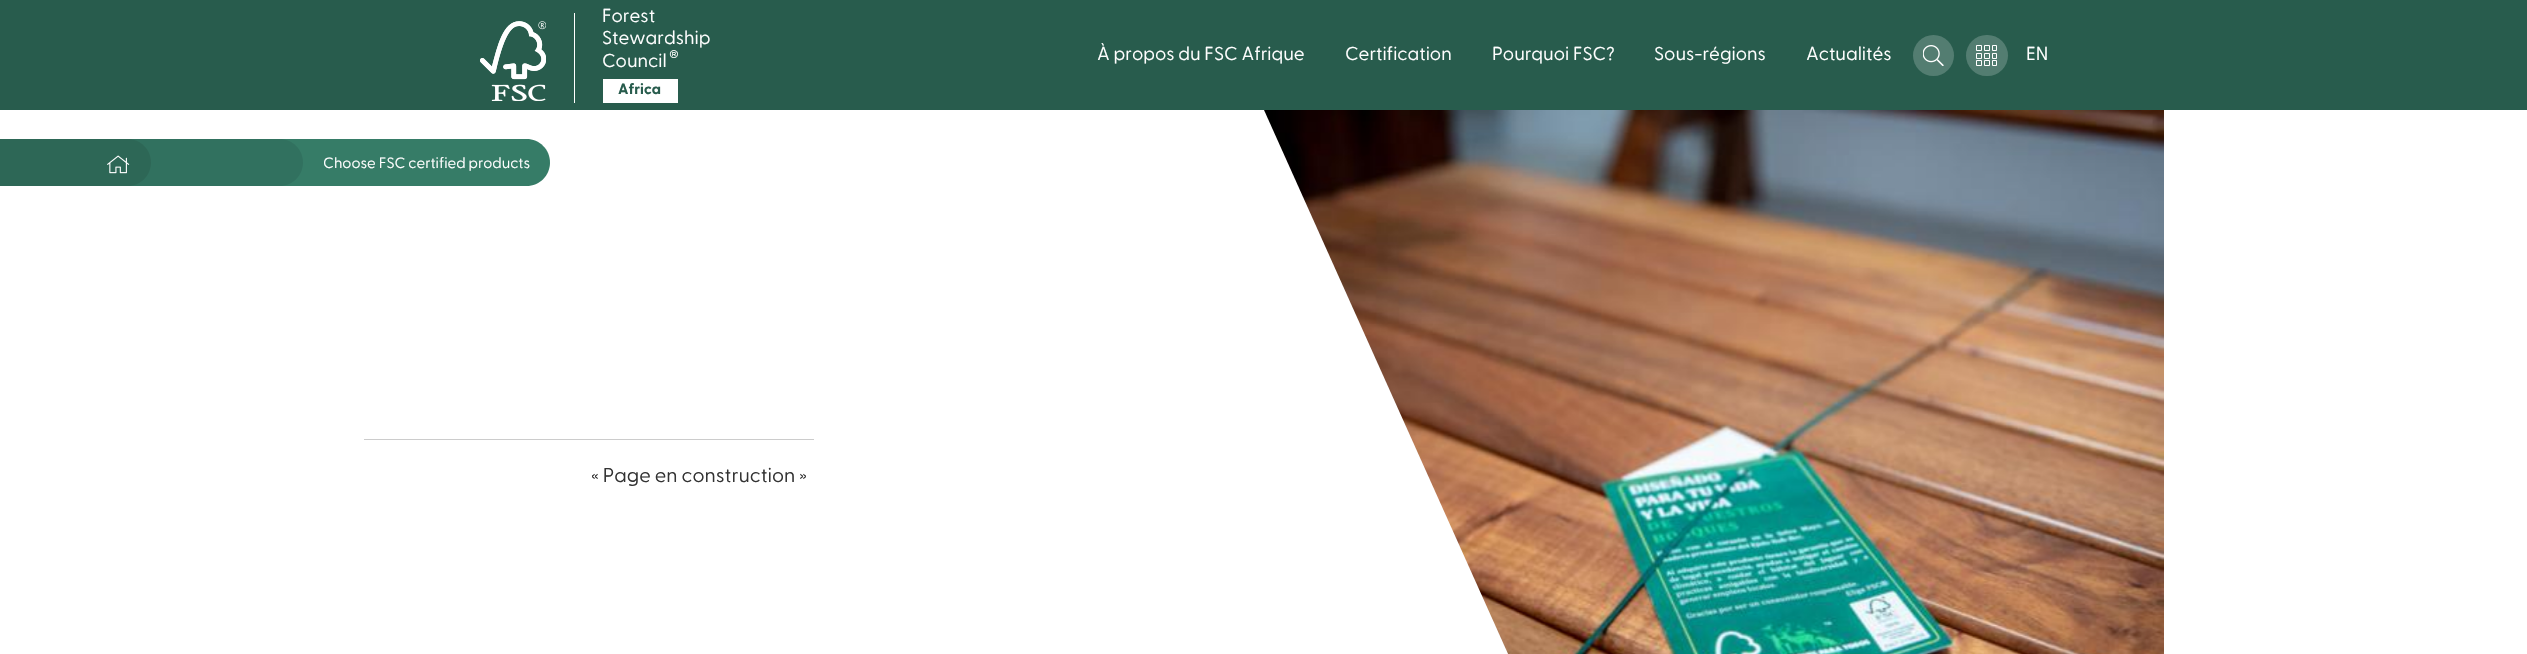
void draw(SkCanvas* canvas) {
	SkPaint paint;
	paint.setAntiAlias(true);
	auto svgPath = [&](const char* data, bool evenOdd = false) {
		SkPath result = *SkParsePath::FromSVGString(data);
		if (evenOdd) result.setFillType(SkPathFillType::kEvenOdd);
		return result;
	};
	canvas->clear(0xffffffff);
	paint.setColor(0xff285c4d);
	canvas->drawRect(SkRect::MakeXYWH(0, 0, 2527, 110), paint);
	canvas->drawImageRect(SkImages::DeferredFromEncodedData(SkData::MakeFromFileName("img1.png")), SkRect::MakeXYWH(480, 21, 66, 80), SkSamplingOptions());
	paint.setColor(0xffffffff);
	canvas->drawRect(SkRect::MakeXYWH(574, 13, 1, 90), paint);
	SkFont f1(fontMgr->matchFamilyStyle("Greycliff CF", SkFontStyle::Normal()), 18.75);
	f1.setSubpixel(true);
	canvas->drawString("Forest", 602, 22, f1, paint);
	canvas->drawString("Stewardship", 602, 44, f1, paint);
	canvas->drawString("Council", 602, 67, f1, paint);
	SkFont f2(fontMgr->matchFamilyStyle("Greycliff CF", SkFontStyle::Normal()), 14);
	f2.setSubpixel(true);
	canvas->drawString("®", 669, 60, f2, paint);
	canvas->drawRect(SkRect::MakeXYWH(603, 79, 75, 24), paint);
	SkFont f3(fontMgr->matchFamilyStyle("Greycliff CF", SkFontStyle::Bold()), 15);
	f3.setSubpixel(true);
	paint.setColor(0xff285c4d);
	canvas->drawString("Africa", 618, 94, f3, paint);
	paint.setColor(0xffffffff);
	canvas->drawString("À propos du FSC Afrique", 1097, 60, f1, paint);
	canvas->drawString("Certification", 1345, 60, f1, paint);
	canvas->drawString("Pourquoi FSC?", 1492, 60, f1, paint);
	canvas->drawString("Sous-régions", 1654, 60, f1, paint);
	canvas->drawString("Actualités", 1806, 60, f1, paint);
	paint.setColor(0xff537d71);
	canvas->drawCircle(1933.5, 55.5, 20.5, paint);
	canvas->drawImageRect(SkImages::DeferredFromEncodedData(SkData::MakeFromFileName("img2.png")), SkRect::MakeXYWH(1923, 45, 21, 21), SkSamplingOptions());
	canvas->drawRoundRect(SkRect::MakeXYWH(1966, 35, 42, 41), 20.5, 20.5, paint);
	canvas->drawImageRect(SkImages::DeferredFromEncodedData(SkData::MakeFromFileName("img3.png")), SkRect::MakeXYWH(1976, 45, 21, 21), SkSamplingOptions());
	paint.setColor(0xffffffff);
	canvas->drawString("EN", 2026, 60, f1, paint);
	paint.setColor(0xff367c67);
	canvas->drawPath(svgPath("M266 139H526.5C539.5 139 550 149.5 550 162.5C550 175.5 539.5 186 526.5 186H266Z"), paint);
	paint.setColor(0xff31715f);
	canvas->drawPath(svgPath("M115 139H279.5C292.5 139 303 149.5 303 162.5C303 175.5 292.5 186 279.5 186H115Z"), paint);
	paint.setColor(0xff2d6756);
	canvas->drawPath(svgPath("M-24 139H127.5C140.5 139 151 149.5 151 162.5C151 175.5 140.5 186 127.5 186H-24Z"), paint);
	canvas->drawImageRect(SkImages::DeferredFromEncodedData(SkData::MakeFromFileName("img4.png")), SkRect::MakeXYWH(107, 155, 23, 19), SkSamplingOptions());
	SkFont f4(fontMgr->matchFamilyStyle("Greycliff CF", SkFontStyle::Normal()), 15);
	f4.setSubpixel(true);
	paint.setColor(0xffffffff);
	canvas->drawString("Choose FSC certified products", 323, 168, f4, paint);
	paint.setColor(0xffcccccc);
	canvas->drawRect(SkRect::MakeXYWH(364, 439, 450, 1), paint);
	SkFont f5(fontMgr->matchFamilyStyle("Greycliff CF", SkFontStyle::Normal()), 20);
	f5.setSubpixel(true);
	paint.setColor(0xff333333);
	canvas->drawString("« Page en construction »", 591, 482, f5, paint);
	canvas->drawImageRect(SkImages::DeferredFromEncodedData(SkData::MakeFromFileName("img5.png")), SkRect::MakeXYWH(1264, 110, 900, 544), SkSamplingOptions());
	canvas->save();
	canvas->clipRect(SkRect::MakeXYWH(1264, 110, 900, 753));
	paint.setColor(0xffffffff);
	canvas->drawPath(svgPath("M814 110H1264L1605 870H1155Z"), paint);
	canvas->restore();
}
